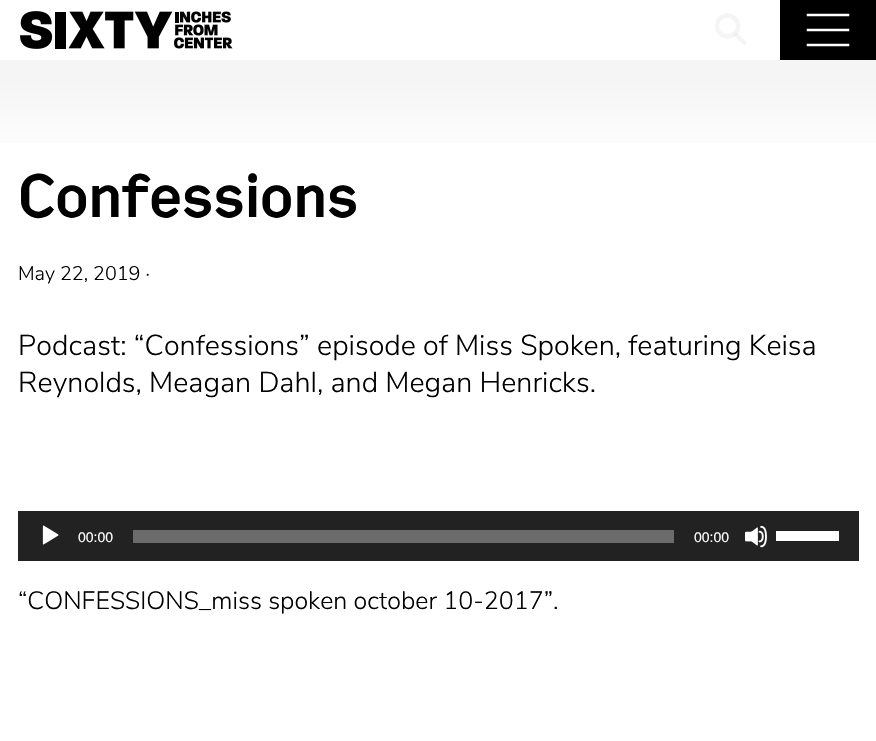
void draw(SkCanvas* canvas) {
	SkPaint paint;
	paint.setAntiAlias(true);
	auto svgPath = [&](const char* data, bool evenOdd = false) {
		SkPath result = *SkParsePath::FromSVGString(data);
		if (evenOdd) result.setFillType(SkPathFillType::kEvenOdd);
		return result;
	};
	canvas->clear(0xffffffff);
	{
		const SkColor colors[] = {0xfff5f5f5, 0xffffffff};
		const float stops[] = {0.5, 1};
		const SkPoint ends[] = {{438, 0}, {438, 163}};
		paint.setShader(SkGradientShader::MakeLinear(ends, colors, stops, 2, SkTileMode::kClamp));
		paint.setAlpha(255);
	}
	canvas->drawRect(SkRect::MakeXYWH(0, 60, 876, 83), paint);
	canvas->drawImageRect(SkImages::DeferredFromEncodedData(SkData::MakeFromFileName("img1.png")), SkRect::MakeXYWH(20, 11, 213, 38), SkSamplingOptions());
	paint.setStroke(true);
	paint.setStrokeWidth(4.4);
	paint.setShader(nullptr);
	paint.setColor(0xfff5f5f5);
	canvas->drawCircle(727.5, 26, 10.5, paint);
	paint.setStrokeCap(SkPaint::kRound_Cap);
	paint.setColor(0x33cccccc);
	canvas->drawPath(svgPath("M736.5 35L744.5 43"), paint);
	paint.setStroke(false);
	paint.setColor(0xff000000);
	canvas->drawRect(SkRect::MakeXYWH(780, 0, 96, 60), paint);
	paint.setStroke(true);
	paint.setStrokeWidth(2.5);
	paint.setStrokeCap(SkPaint::kSquare_Cap);
	paint.setColor(0xffffffff);
	canvas->drawPath(svgPath("M808 15H848M808 30H848M808 45H848"), paint);
	SkFont f1(fontMgr->matchFamilyStyle("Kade", SkFontStyle(500, SkFontStyle::kNormal_Width, SkFontStyle::kUpright_Slant)), 60);
	f1.setSubpixel(true);
	paint.setStroke(false);
	paint.setColor(0xff000000);
	canvas->drawString("Confessions", 18, 217, f1, paint);
	SkFont f2(fontMgr->matchFamilyStyle("Nunito Sans", SkFontStyle(300, SkFontStyle::kNormal_Width, SkFontStyle::kUpright_Slant)), 19.75);
	f2.setSubpixel(true);
	canvas->drawString("May 22, 2019 ·", 18, 280, f2, paint);
	SkFont f3(fontMgr->matchFamilyStyle("Nunito Sans", SkFontStyle(300, SkFontStyle::kNormal_Width, SkFontStyle::kUpright_Slant)), 28.7);
	f3.setSubpixel(true);
	canvas->drawString("Podcast: “Confessions” episode of Miss Spoken, featuring Keisa", 18, 355, f3, paint);
	canvas->drawString("Reynolds, Meagan Dahl, and Megan Henricks.", 18, 392, f3, paint);
	paint.setColor(0xff222222);
	canvas->drawRect(SkRect::MakeXYWH(18, 511, 841, 50), paint);
	canvas->drawImageRect(SkImages::DeferredFromEncodedData(SkData::MakeFromFileName("img2.png")), SkRect::MakeXYWH(42, 525, 17, 20), SkSamplingOptions());
	SkFont f4(fontMgr->matchFamilyStyle("Liberation Sans", SkFontStyle::Normal()), 14);
	f4.setSubpixel(true);
	paint.setColor(0xffffffff);
	canvas->drawString("00:00", 78, 542, f4, paint);
	paint.setColor(0xff6b6b6b);
	canvas->drawRect(SkRect::MakeXYWH(133, 530, 541, 13), paint);
	paint.setColor(0xffffffff);
	canvas->drawString("00:00", 694, 542, f4, paint);
	canvas->drawImageRect(SkImages::DeferredFromEncodedData(SkData::MakeFromFileName("img3.png")), SkRect::MakeXYWH(745, 525, 22, 23), SkSamplingOptions());
	canvas->drawRect(SkRect::MakeXYWH(776, 531, 63, 10), paint);
	SkFont f5(fontMgr->matchFamilyStyle("Nunito Sans", SkFontStyle(300, SkFontStyle::kNormal_Width, SkFontStyle::kUpright_Slant)), 25);
	f5.setSubpixel(true);
	paint.setColor(0xff000000);
	canvas->drawString("“CONFESSIONS_miss spoken october 10-2017”.", 18, 609, f5, paint);
}
